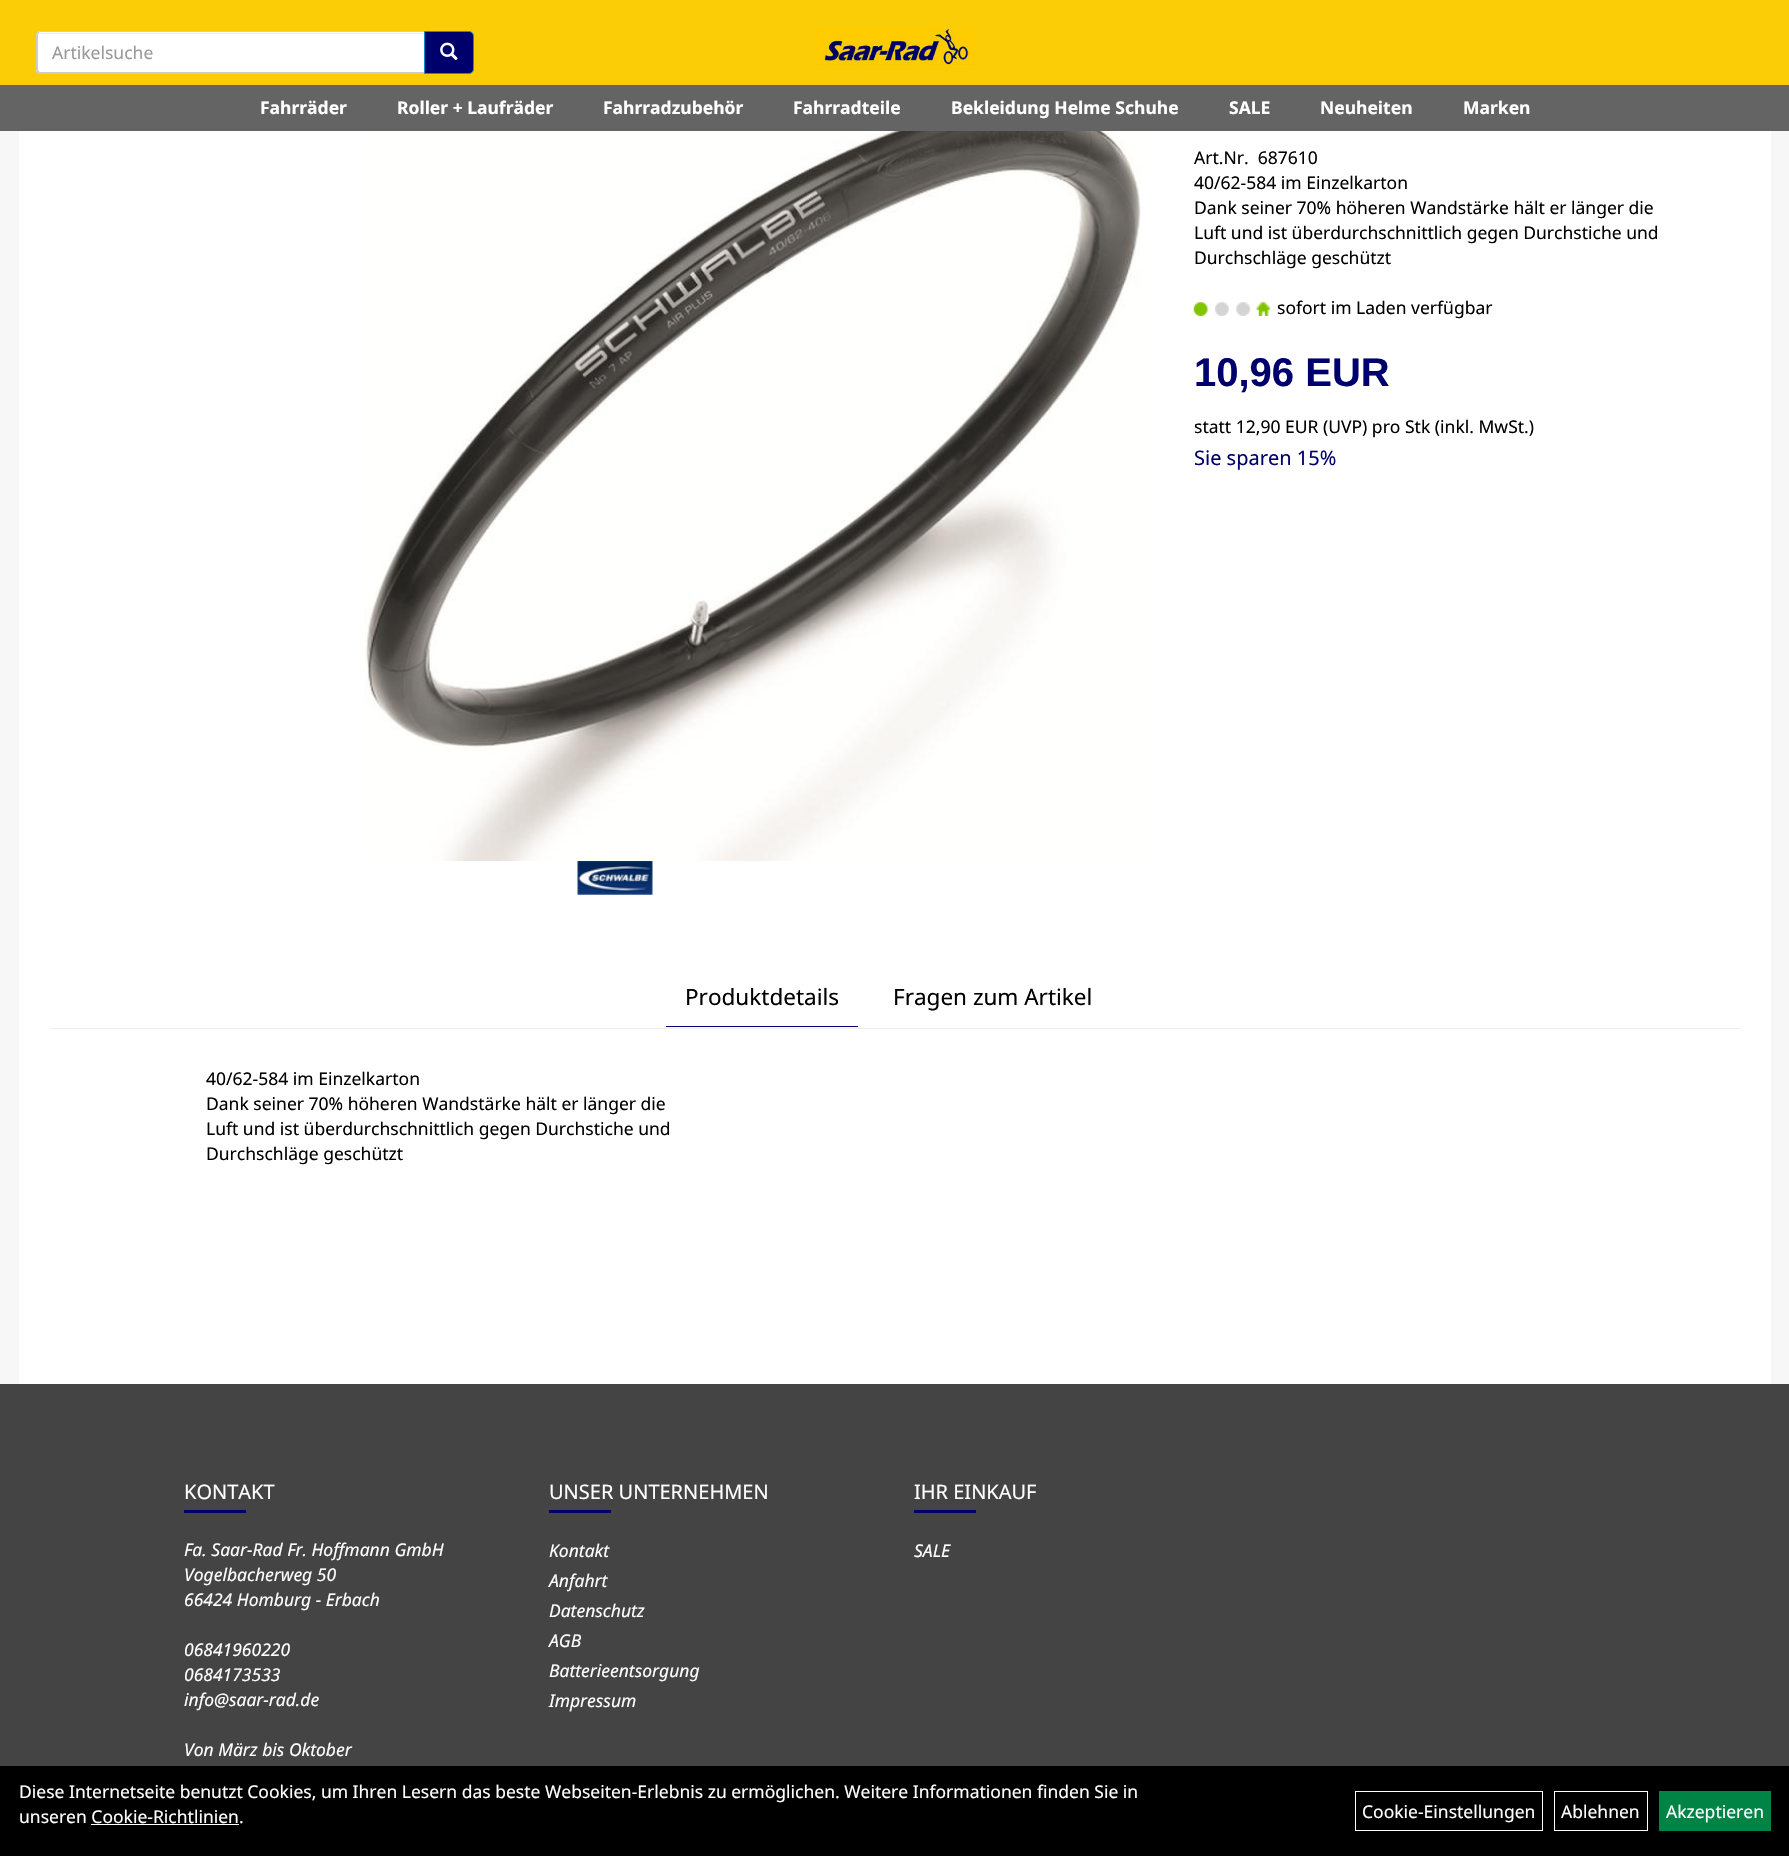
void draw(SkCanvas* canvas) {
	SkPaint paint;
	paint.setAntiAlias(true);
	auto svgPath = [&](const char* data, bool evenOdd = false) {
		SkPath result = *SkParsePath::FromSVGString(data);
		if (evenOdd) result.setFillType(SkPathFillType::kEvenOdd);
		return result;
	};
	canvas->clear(0xfff7f7f7);
	paint.setColor(0xfffbcd06);
	canvas->drawRect(SkRect::MakeXYWH(0, 0, 1789, 85), paint);
	paint.setColor(0xffffffff);
	canvas->drawPath(svgPath("M41 31H424V74H41C38 74 36 72 36 69V36C36 33 38 31 41 31Z"), paint);
	paint.setColor(0xffececec);
	canvas->drawPath(svgPath("M41 34H424V33H42C39 33 38 35 38 38C38 35 39 34 41 34Z"), paint);
	paint.setColor(0xffcccccc);
	canvas->drawPath(svgPath("M41 31H424V74H41C38 74 36 72 36 69V36C36 33 38 31 41 31ZM41 32H424V72H41C39 72 38 71 38 69V36C38 34 39 32 41 32Z", true), paint);
	SkFont f1(fontMgr->matchFamilyStyle("Noto Sans", SkFontStyle::Normal()), 17.5);
	f1.setSubpixel(true);
	paint.setColor(0xff999999);
	canvas->drawString("Artikelsuche", 52, 59, f1, paint);
	paint.setColor(0xff00006d);
	canvas->drawPath(svgPath("M424.5 31.5H469C471.5 31.5 473.5 33.5 473.5 36V69C473.5 71.5 471.5 73.5 469 73.5H424.5Z"), paint);
	paint.setStroke(true);
	paint.setStrokeWidth(1);
	paint.setColor(0xff0891cc);
	canvas->drawPath(svgPath("M424.5 31.5H469C471.5 31.5 473.5 33.5 473.5 36V69C473.5 71.5 471.5 73.5 469 73.5H424.5Z"), paint);
	canvas->drawImageRect(SkImages::DeferredFromEncodedData(SkData::MakeFromFileName("img1.png")), SkRect::MakeXYWH(440, 42, 18, 19), SkSamplingOptions());
	canvas->drawImageRect(SkImages::DeferredFromEncodedData(SkData::MakeFromFileName("img2.png")), SkRect::MakeXYWH(815, 27, 160, 38), SkSamplingOptions());
	paint.setStroke(false);
	paint.setColor(0xff646464);
	canvas->drawRect(SkRect::MakeXYWH(0, 85, 1789, 46), paint);
	SkFont f2(fontMgr->matchFamilyStyle("Noto Sans", SkFontStyle::Bold()), 17.5);
	f2.setSubpixel(true);
	paint.setColor(0xffffffff);
	canvas->drawString("Fahrräder", 260, 114, f2, paint);
	canvas->drawString("Roller + Laufräder", 397, 114, f2, paint);
	canvas->drawString("Fahrradzubehör", 603, 114, f2, paint);
	canvas->drawString("Fahrradteile", 793, 114, f2, paint);
	canvas->drawString("Bekleidung Helme Schuhe", 951, 114, f2, paint);
	canvas->drawString("SALE", 1229, 114, f2, paint);
	canvas->drawString("Neuheiten", 1320, 114, f2, paint);
	canvas->drawString("Marken", 1463, 114, f2, paint);
	canvas->drawRect(SkRect::MakeXYWH(19, 131, 1752, 1253), paint);
	canvas->drawImageRect(SkImages::DeferredFromEncodedData(SkData::MakeFromFileName("img3.png")), SkRect::MakeXYWH(364, 131, 778, 730), SkSamplingOptions());
	canvas->drawImageRect(SkImages::DeferredFromEncodedData(SkData::MakeFromFileName("img4.png")), SkRect::MakeXYWH(577, 861, 76, 34), SkSamplingOptions());
	paint.setColor(0xff000000);
	canvas->drawString("Art.Nr.  687610", 1194, 164, f1, paint);
	canvas->drawString("40/62-584 im Einzelkarton", 1194, 189, f1, paint);
	canvas->drawString("Dank seiner 70% höheren Wandstärke hält er länger die", 1194, 214, f1, paint);
	canvas->drawString("Luft und ist überdurchschnittlich gegen Durchstiche und", 1194, 239, f1, paint);
	canvas->drawString("Durchschläge geschützt", 1194, 264, f1, paint);
	canvas->drawImageRect(SkImages::DeferredFromEncodedData(SkData::MakeFromFileName("img5.png")), SkRect::MakeXYWH(1193, 302, 78, 14), SkSamplingOptions());
	canvas->drawString("sofort im Laden verfügbar", 1277, 314, f1, paint);
	SkFont f3(fontMgr->matchFamilyStyle("Liberation Sans", SkFontStyle::Bold()), 40);
	f3.setSubpixel(true);
	paint.setColor(0xff00006d);
	canvas->drawString("10,96 EUR", 1194, 386, f3, paint);
	paint.setColor(0xff000000);
	canvas->drawString("statt 12,90 EUR (UVP) pro Stk (inkl. MwSt.)", 1194, 433, f1, paint);
	SkFont f4(fontMgr->matchFamilyStyle("Noto Sans", SkFontStyle::Normal()), 20);
	f4.setSubpixel(true);
	paint.setColor(0xff00006d);
	canvas->drawString("Sie sparen 15%", 1194, 465, f4, paint);
	canvas->drawRect(SkRect::MakeXYWH(666, 1026, 192, 1), paint);
	SkFont f5(fontMgr->matchFamilyStyle("Noto Sans", SkFontStyle::Normal()), 22.5);
	f5.setSubpixel(true);
	paint.setColor(0xff000000);
	canvas->drawString("Produktdetails", 685, 1005, f5, paint);
	canvas->drawString("Fragen zum Artikel", 893, 1005, f5, paint);
	paint.setColor(0xffeeeeee);
	canvas->drawRect(SkRect::MakeXYWH(50, 1028, 1690, 1), paint);
	paint.setColor(0xff000000);
	canvas->drawString("40/62-584 im Einzelkarton", 206, 1085, f1, paint);
	canvas->drawString("Dank seiner 70% höheren Wandstärke hält er länger die", 206, 1110, f1, paint);
	canvas->drawString("Luft und ist überdurchschnittlich gegen Durchstiche und", 206, 1135, f1, paint);
	canvas->drawString("Durchschläge geschützt", 206, 1160, f1, paint);
	paint.setColor(0xff444444);
	canvas->drawRect(SkRect::MakeXYWH(0, 1384, 1789, 382), paint);
	paint.setColor(0xffffffff);
	canvas->drawString("KONTAKT", 184, 1499, f4, paint);
	paint.setColor(0xff00006d);
	canvas->drawRect(SkRect::MakeXYWH(184, 1510, 62, 3), paint);
	SkFont f6(fontMgr->matchFamilyStyle("Noto Sans", SkFontStyle::Italic()), 17.5);
	f6.setSubpixel(true);
	paint.setColor(0xffffffff);
	canvas->drawString("Fa. Saar-Rad Fr. Hoffmann GmbH", 184, 1556, f6, paint);
	canvas->drawString("Vogelbacherweg 50", 184, 1581, f6, paint);
	canvas->drawString("66424 Homburg - Erbach", 184, 1606, f6, paint);
	canvas->drawString("06841960220", 184, 1656, f6, paint);
	canvas->drawString("0684173533", 184, 1681, f6, paint);
	canvas->drawString("info@saar-rad.de", 184, 1706, f6, paint);
	canvas->drawString("Von März bis Oktober", 184, 1756, f6, paint);
	canvas->drawString("UNSER UNTERNEHMEN", 549, 1499, f4, paint);
	paint.setColor(0xff00006d);
	canvas->drawRect(SkRect::MakeXYWH(549, 1510, 62, 3), paint);
	paint.setColor(0xffffffff);
	canvas->drawString("Kontakt", 549, 1557, f6, paint);
	canvas->drawString("Anfahrt", 549, 1587, f6, paint);
	canvas->drawString("Datenschutz", 549, 1617, f6, paint);
	canvas->drawString("AGB", 549, 1647, f6, paint);
	canvas->drawString("Batterieentsorgung", 549, 1677, f6, paint);
	canvas->drawString("Impressum", 549, 1707, f6, paint);
	canvas->drawString("IHR EINKAUF", 914, 1499, f4, paint);
	paint.setColor(0xff00006d);
	canvas->drawRect(SkRect::MakeXYWH(914, 1510, 62, 3), paint);
	paint.setColor(0xffffffff);
	canvas->drawString("SALE", 914, 1557, f6, paint);
	paint.setColor(0xff000000);
	canvas->drawRect(SkRect::MakeXYWH(0, 1766, 1789, 90), paint);
	paint.setColor(0xffffffff);
	canvas->drawString("Diese Internetseite benutzt Cookies, um Ihren Lesern das beste Webseiten-Erlebnis zu ermöglichen. Weitere Informationen finden Sie in", 19, 1798, f1, paint);
	canvas->drawString("unseren Cookie-Richtlinien.", 19, 1823, f1, paint);
	canvas->drawRect(SkRect::MakeXYWH(91, 1824, 148, 1), paint);
	paint.setStroke(true);
	canvas->drawRect(SkRect::MakeXYWH(1355.5, 1791.5, 187, 39), paint);
	paint.setStroke(false);
	canvas->drawString("Cookie-Einstellungen", 1362, 1818, f1, paint);
	paint.setStroke(true);
	canvas->drawRect(SkRect::MakeXYWH(1554.5, 1791.5, 93, 39), paint);
	paint.setStroke(false);
	canvas->drawString("Ablehnen", 1561, 1818, f1, paint);
	paint.setColor(0xff008446);
	canvas->drawRect(SkRect::MakeXYWH(1659, 1791, 112, 40), paint);
	paint.setColor(0xffffffff);
	canvas->drawString("Akzeptieren", 1666, 1818, f1, paint);
}
